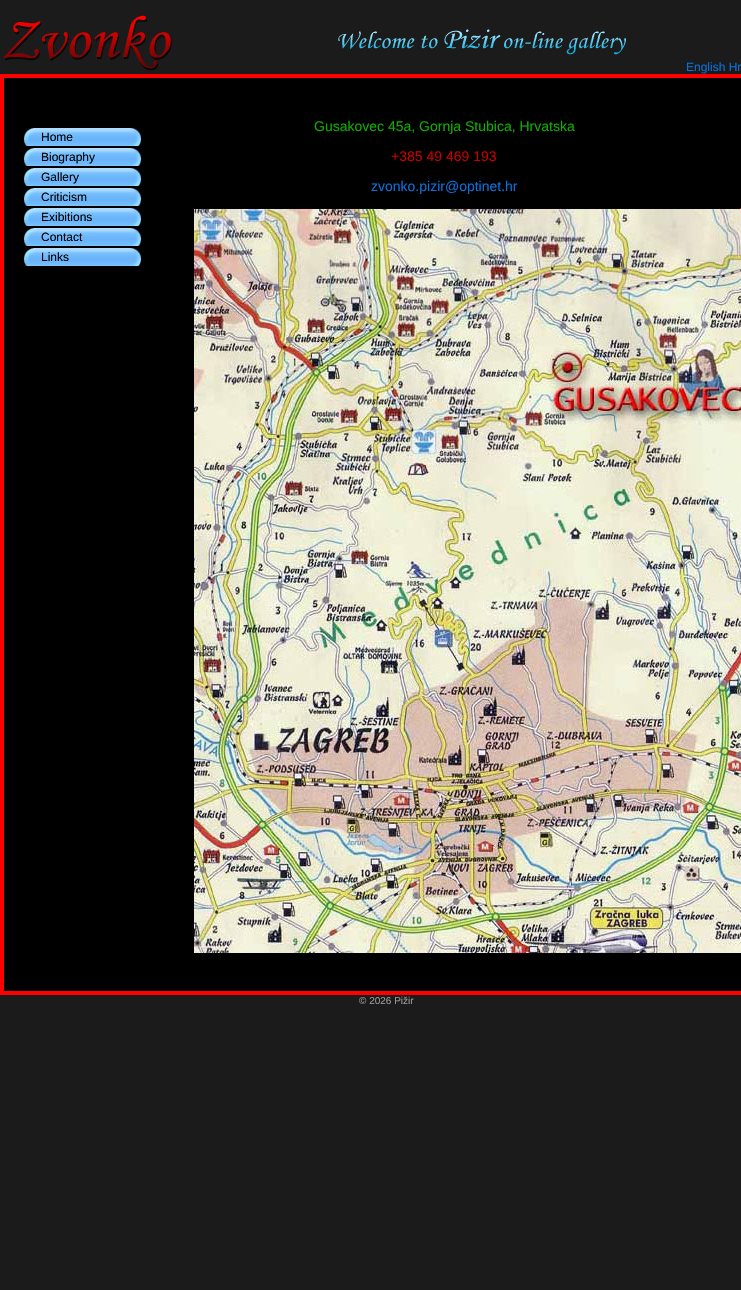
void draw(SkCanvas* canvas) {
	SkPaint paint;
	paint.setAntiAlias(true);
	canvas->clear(0xff1b1b1b);
	canvas->drawImageRect(SkImages::DeferredFromEncodedData(SkData::MakeFromFileName("img1.png")), SkRect::MakeXYWH(4, 15, 168, 56), SkSamplingOptions());
	canvas->drawImageRect(SkImages::DeferredFromEncodedData(SkData::MakeFromFileName("img2.png")), SkRect::MakeXYWH(338, 29, 288, 26), SkSamplingOptions());
	SkFont f1(fontMgr->matchFamilyStyle("Liberation Sans", SkFontStyle::Normal()), 12);
	f1.setSubpixel(true);
	paint.setColor(0xff0a70da);
	canvas->drawString("English Hr", 686, 71, f1, paint);
	paint.setColor(0xff000000);
	canvas->drawRect(SkRect::MakeXYWH(2, 76, 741, 917), paint);
	paint.setStroke(true);
	paint.setStrokeWidth(4);
	paint.setColor(0xffff0000);
	canvas->drawRect(SkRect::MakeXYWH(2, 76, 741, 917), paint);
	canvas->drawImageRect(SkImages::DeferredFromEncodedData(SkData::MakeFromFileName("img3.png")), SkRect::MakeXYWH(24, 128, 117, 18), SkSamplingOptions());
	paint.setStroke(false);
	paint.setColor(0xff000000);
	canvas->drawString("Home", 41, 141, f1, paint);
	canvas->drawImageRect(SkImages::DeferredFromEncodedData(SkData::MakeFromFileName("img3.png")), SkRect::MakeXYWH(24, 148, 117, 18), SkSamplingOptions());
	canvas->drawString("Biography", 41, 161, f1, paint);
	canvas->drawImageRect(SkImages::DeferredFromEncodedData(SkData::MakeFromFileName("img3.png")), SkRect::MakeXYWH(24, 168, 117, 18), SkSamplingOptions());
	canvas->drawString("Gallery", 41, 181, f1, paint);
	canvas->drawImageRect(SkImages::DeferredFromEncodedData(SkData::MakeFromFileName("img3.png")), SkRect::MakeXYWH(24, 188, 117, 18), SkSamplingOptions());
	canvas->drawString("Criticism", 41, 201, f1, paint);
	canvas->drawImageRect(SkImages::DeferredFromEncodedData(SkData::MakeFromFileName("img3.png")), SkRect::MakeXYWH(24, 208, 117, 18), SkSamplingOptions());
	canvas->drawString("Exibitions", 41, 221, f1, paint);
	canvas->drawImageRect(SkImages::DeferredFromEncodedData(SkData::MakeFromFileName("img3.png")), SkRect::MakeXYWH(24, 228, 117, 18), SkSamplingOptions());
	canvas->drawString("Contact", 41, 241, f1, paint);
	canvas->drawImageRect(SkImages::DeferredFromEncodedData(SkData::MakeFromFileName("img3.png")), SkRect::MakeXYWH(24, 248, 117, 18), SkSamplingOptions());
	canvas->drawString("Links", 41, 261, f1, paint);
	SkFont f2(fontMgr->matchFamilyStyle("Liberation Sans", SkFontStyle::Normal()), 14);
	f2.setSubpixel(true);
	paint.setColor(0xff10ae00);
	canvas->drawString("Gusakovec 45a, Gornja Stubica, Hrvatska", 314, 131, f2, paint);
	paint.setColor(0xffc40000);
	canvas->drawString("+385 49 469 193", 391, 161, f2, paint);
	paint.setColor(0xff0a70da);
	canvas->drawString("zvonko.pizir@optinet.hr", 371, 191, f2, paint);
	canvas->drawImageRect(SkImages::DeferredFromEncodedData(SkData::MakeFromFileName("img4.png")), SkRect::MakeXYWH(194, 208, 547, 745), SkSamplingOptions());
	SkFont f3(fontMgr->matchFamilyStyle("Liberation Sans", SkFontStyle::Normal()), 10);
	f3.setSubpixel(true);
	paint.setColor(0xff999999);
	canvas->drawString("© 2026 Pižir", 359, 1004, f3, paint);
}
